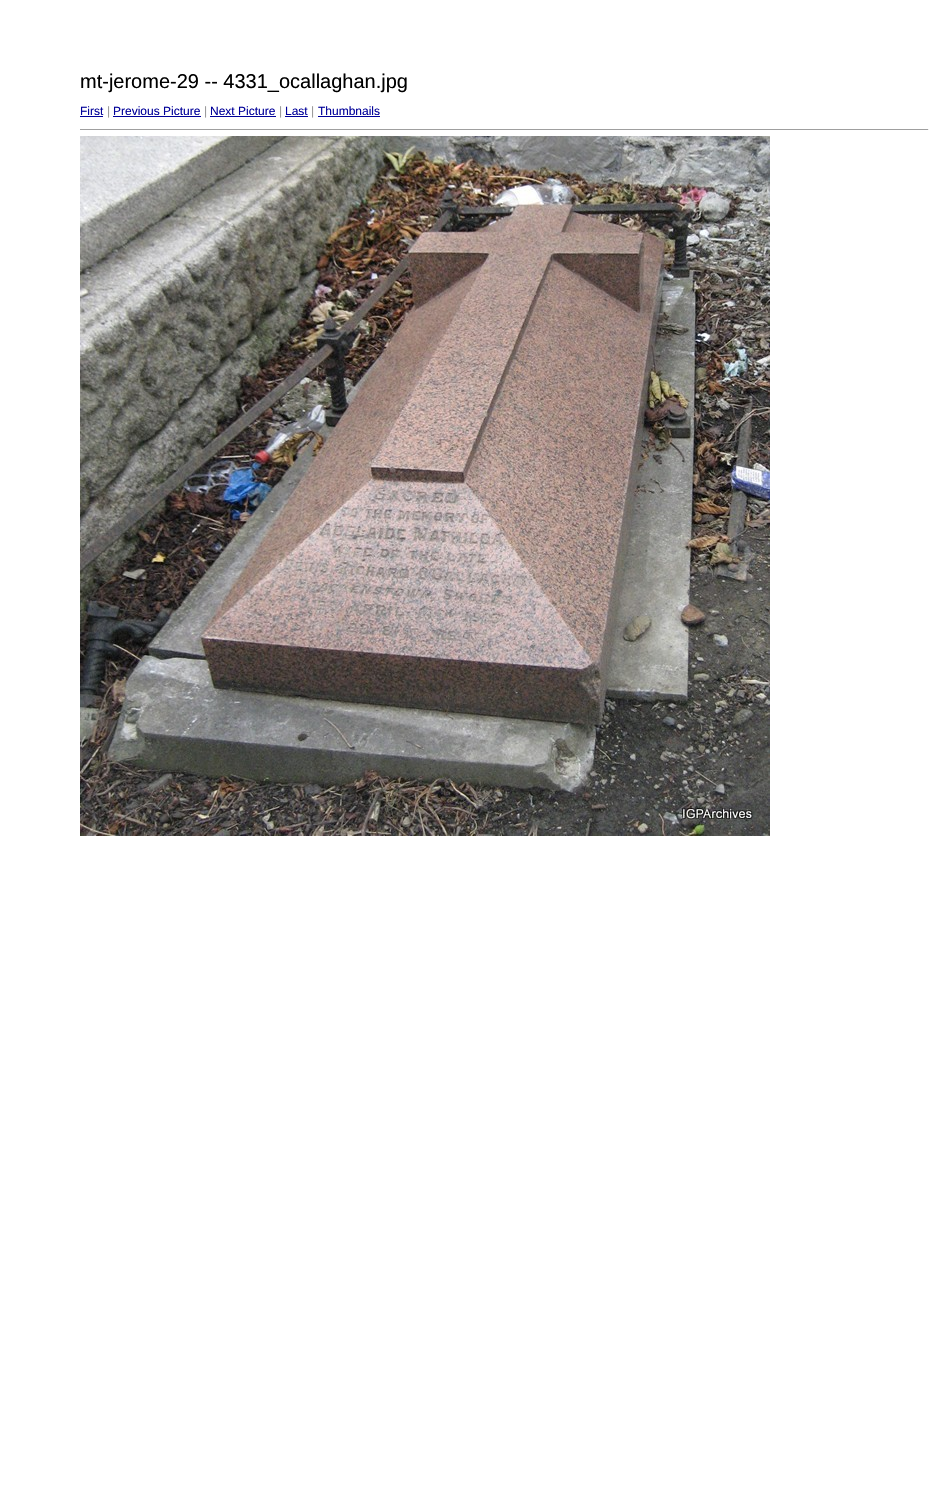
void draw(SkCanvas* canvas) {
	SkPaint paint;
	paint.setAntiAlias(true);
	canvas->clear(0xffffffff);
	SkFont f1(fontMgr->matchFamilyStyle("Liberation Sans", SkFontStyle::Normal()), 20);
	f1.setSubpixel(true);
	paint.setColor(0xff000000);
	canvas->drawString("mt-jerome-29 -- 4331_ocallaghan.jpg", 80, 88, f1, paint);
	SkFont f2(fontMgr->matchFamilyStyle("Liberation Sans", SkFontStyle::Normal()), 12);
	f2.setSubpixel(true);
	paint.setColor(0xff000099);
	canvas->drawString("First", 80, 115, f2, paint);
	canvas->drawRect(SkRect::MakeXYWH(80, 116, 23, 1), paint);
	paint.setColor(0xff979797);
	canvas->drawString("|", 107, 115, f2, paint);
	paint.setColor(0xff000099);
	canvas->drawString("Previous Picture", 113, 115, f2, paint);
	canvas->drawRect(SkRect::MakeXYWH(113, 116, 88, 1), paint);
	paint.setColor(0xff979797);
	canvas->drawString("|", 204, 115, f2, paint);
	paint.setColor(0xff000099);
	canvas->drawString("Next Picture", 210, 115, f2, paint);
	canvas->drawRect(SkRect::MakeXYWH(210, 116, 66, 1), paint);
	paint.setColor(0xff979797);
	canvas->drawString("|", 279, 115, f2, paint);
	paint.setColor(0xff000099);
	canvas->drawString("Last", 285, 115, f2, paint);
	canvas->drawRect(SkRect::MakeXYWH(285, 116, 23, 1), paint);
	paint.setColor(0xff979797);
	canvas->drawString("|", 311, 115, f2, paint);
	paint.setColor(0xff000099);
	canvas->drawString("Thumbnails", 318, 115, f2, paint);
	canvas->drawRect(SkRect::MakeXYWH(318, 116, 62, 1), paint);
	paint.setColor(0xff9f9f9f);
	canvas->drawRect(SkRect::MakeXYWH(80, 129, 849, 1), paint);
	paint.setColor(0xffeeeeee);
	canvas->drawRect(SkRect::MakeXYWH(928, 129, 1, 1), paint);
	canvas->drawImageRect(SkImages::DeferredFromEncodedData(SkData::MakeFromFileName("img1.png")), SkRect::MakeXYWH(80, 136, 690, 700), SkSamplingOptions());
}
